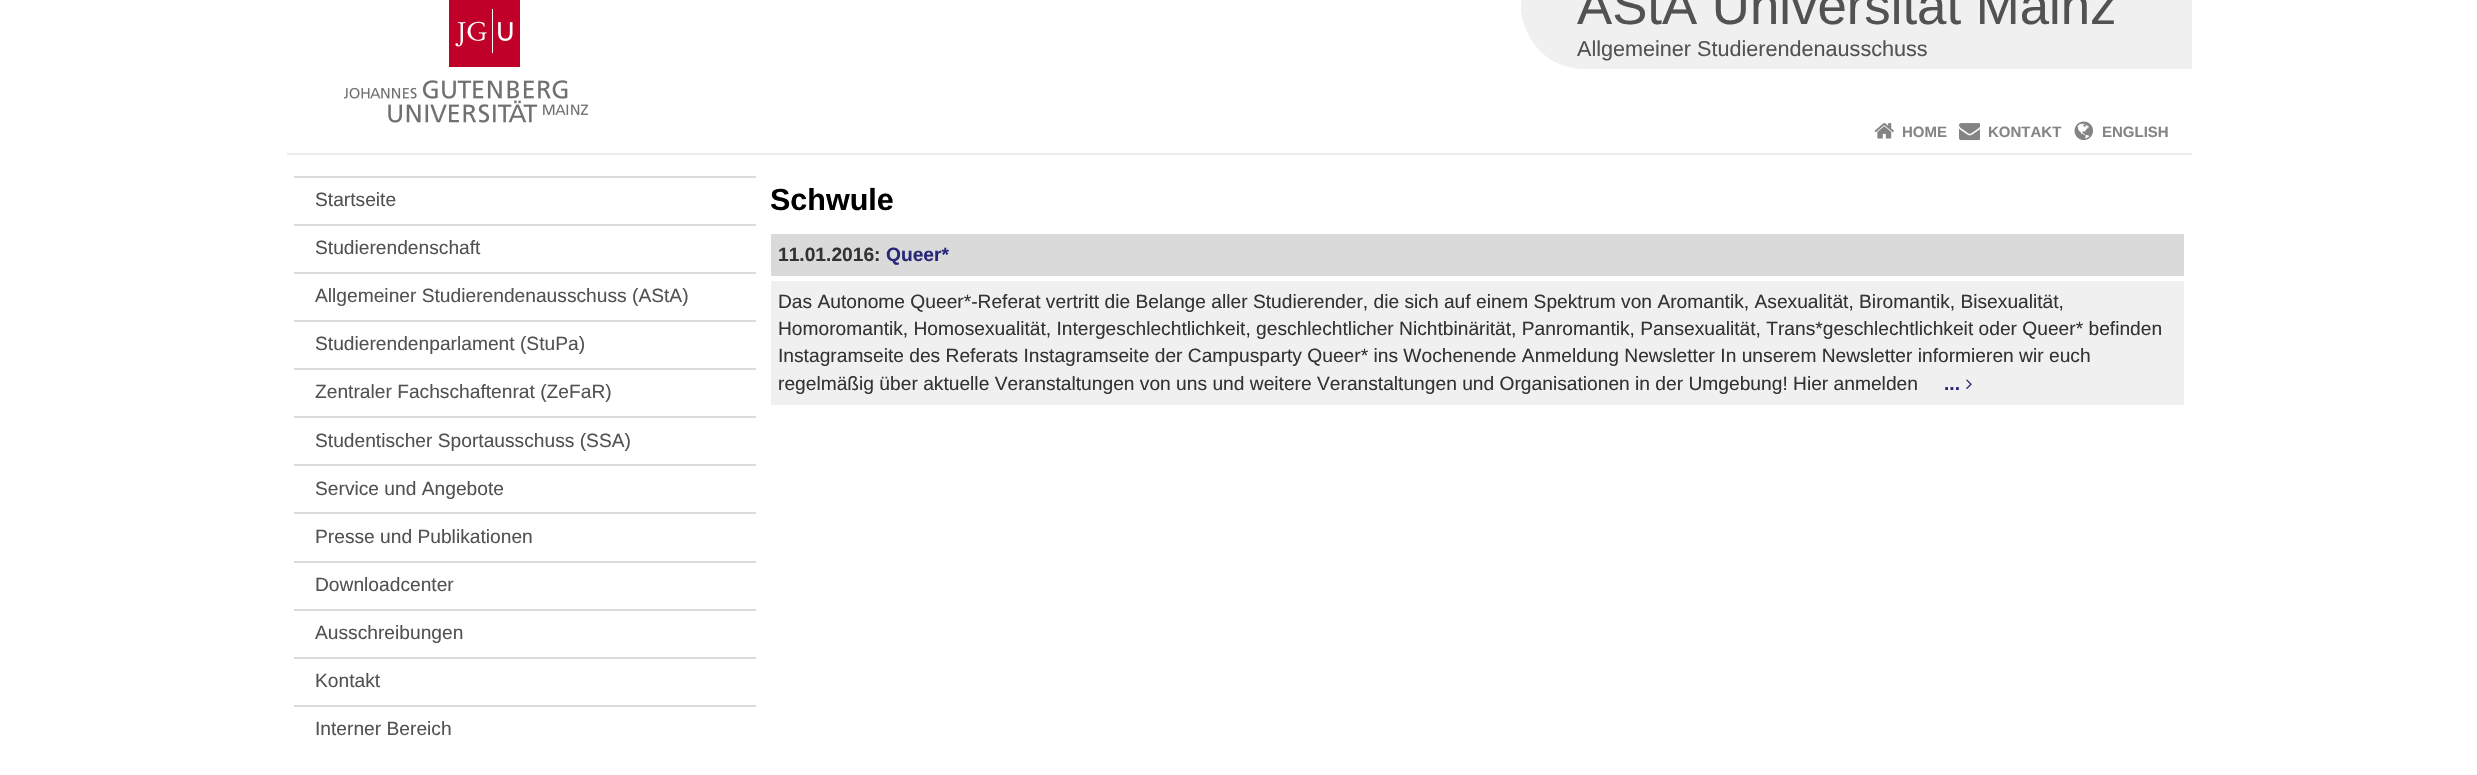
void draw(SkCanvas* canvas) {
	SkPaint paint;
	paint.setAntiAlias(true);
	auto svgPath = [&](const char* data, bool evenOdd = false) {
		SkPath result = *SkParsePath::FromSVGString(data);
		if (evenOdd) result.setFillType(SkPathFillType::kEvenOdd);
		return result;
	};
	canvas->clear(0xffffffff);
	canvas->drawImageRect(SkImages::DeferredFromEncodedData(SkData::MakeFromFileName("img1.png")), SkRect::MakeXYWH(344, 0, 244, 123), SkSamplingOptions());
	canvas->save();
	canvas->clipRect(SkRect::MakeXYWH(1517, 0, 675, 110));
	paint.setColor(0xfff0f0f0);
	canvas->drawPath(svgPath("M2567 69H1582C1532 66 1521 20 1521 9V-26H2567Z"), paint);
	canvas->restore();
	SkFont f1(fontMgr->matchFamilyStyle("Liberation Sans", SkFontStyle::Normal()), 52.75);
	f1.setSubpixel(true);
	paint.setColor(0xff525252);
	canvas->drawString("AStA Universität Mainz", 1577, 24, f1, paint);
	SkFont f2(fontMgr->matchFamilyStyle("Liberation Sans", SkFontStyle::Normal()), 21.6);
	f2.setSubpixel(true);
	canvas->drawString("Allgemeiner Studierendenausschuss", 1577, 56, f2, paint);
	canvas->drawImageRect(SkImages::DeferredFromEncodedData(SkData::MakeFromFileName("img2.png")), SkRect::MakeXYWH(1874, 123, 20, 16), SkSamplingOptions());
	SkFont f3(fontMgr->matchFamilyStyle("Liberation Sans", SkFontStyle::Bold()), 15);
	f3.setSubpixel(true);
	paint.setColor(0xff848484);
	canvas->drawString("HOME", 1902, 137, f3, paint);
	canvas->drawImageRect(SkImages::DeferredFromEncodedData(SkData::MakeFromFileName("img3.png")), SkRect::MakeXYWH(1959, 123, 21, 18), SkSamplingOptions());
	canvas->drawString("KONTAKT", 1988, 137, f3, paint);
	canvas->drawImageRect(SkImages::DeferredFromEncodedData(SkData::MakeFromFileName("img4.png")), SkRect::MakeXYWH(2074, 121, 19, 19), SkSamplingOptions());
	canvas->drawString("ENGLISH", 2102, 137, f3, paint);
	paint.setColor(0xffebebeb);
	canvas->drawRect(SkRect::MakeXYWH(287, 153, 1905, 2), paint);
	paint.setColor(0xffdadada);
	canvas->drawRect(SkRect::MakeXYWH(294, 176, 462, 2), paint);
	SkFont f4(fontMgr->matchFamilyStyle("Liberation Sans", SkFontStyle::Normal()), 19.2);
	f4.setSubpixel(true);
	paint.setColor(0xff525252);
	canvas->drawString("Startseite", 315, 206, f4, paint);
	paint.setColor(0xffdadada);
	canvas->drawRect(SkRect::MakeXYWH(294, 224, 462, 2), paint);
	paint.setColor(0xff525252);
	canvas->drawString("Studierendenschaft", 315, 254, f4, paint);
	paint.setColor(0xffdadada);
	canvas->drawRect(SkRect::MakeXYWH(294, 272, 462, 2), paint);
	paint.setColor(0xff525252);
	canvas->drawString("Allgemeiner Studierendenausschuss (AStA)", 315, 302, f4, paint);
	paint.setColor(0xffdadada);
	canvas->drawRect(SkRect::MakeXYWH(294, 320, 462, 2), paint);
	paint.setColor(0xff525252);
	canvas->drawString("Studierendenparlament (StuPa)", 315, 350, f4, paint);
	paint.setColor(0xffdadada);
	canvas->drawRect(SkRect::MakeXYWH(294, 368, 462, 2), paint);
	paint.setColor(0xff525252);
	canvas->drawString("Zentraler Fachschaftenrat (ZeFaR)", 315, 398, f4, paint);
	paint.setColor(0xffdadada);
	canvas->drawRect(SkRect::MakeXYWH(294, 416, 462, 2), paint);
	paint.setColor(0xff525252);
	canvas->drawString("Studentischer Sportausschuss (SSA)", 315, 447, f4, paint);
	paint.setColor(0xffdadada);
	canvas->drawRect(SkRect::MakeXYWH(294, 464, 462, 2), paint);
	paint.setColor(0xff525252);
	canvas->drawString("Service und Angebote", 315, 495, f4, paint);
	paint.setColor(0xffdadada);
	canvas->drawRect(SkRect::MakeXYWH(294, 512, 462, 2), paint);
	paint.setColor(0xff525252);
	canvas->drawString("Presse und Publikationen", 315, 543, f4, paint);
	paint.setColor(0xffdadada);
	canvas->drawRect(SkRect::MakeXYWH(294, 561, 462, 2), paint);
	paint.setColor(0xff525252);
	canvas->drawString("Downloadcenter", 315, 591, f4, paint);
	paint.setColor(0xffdadada);
	canvas->drawRect(SkRect::MakeXYWH(294, 609, 462, 2), paint);
	paint.setColor(0xff525252);
	canvas->drawString("Ausschreibungen", 315, 639, f4, paint);
	paint.setColor(0xffdadada);
	canvas->drawRect(SkRect::MakeXYWH(294, 657, 462, 2), paint);
	paint.setColor(0xff525252);
	canvas->drawString("Kontakt", 315, 687, f4, paint);
	paint.setColor(0xffdadada);
	canvas->drawRect(SkRect::MakeXYWH(294, 705, 462, 2), paint);
	paint.setColor(0xff525252);
	canvas->drawString("Interner Bereich", 315, 735, f4, paint);
	SkFont f5(fontMgr->matchFamilyStyle("Liberation Sans", SkFontStyle::Bold()), 30.5);
	f5.setSubpixel(true);
	paint.setColor(0xff000000);
	canvas->drawString("Schwule", 770, 210, f5, paint);
	paint.setColor(0xffdadada);
	canvas->drawRect(SkRect::MakeXYWH(771, 234, 1413, 42), paint);
	SkFont f6(fontMgr->matchFamilyStyle("Liberation Sans", SkFontStyle::Bold()), 19.2);
	f6.setSubpixel(true);
	paint.setColor(0xff333333);
	canvas->drawString("11.01.2016:", 778, 261, f6, paint);
	paint.setColor(0xff282879);
	canvas->drawString("Queer*", 886, 261, f6, paint);
	paint.setColor(0xfff0f0f0);
	canvas->drawRect(SkRect::MakeXYWH(771, 281, 1413, 124), paint);
	paint.setColor(0xff333333);
	canvas->drawString("Das Autonome Queer*-Referat vertritt die Belange aller Studierender, die sich auf einem Spektrum von Aromantik, Asexualität, Biromantik, Bisexualität,", 778, 308, f4, paint);
	canvas->drawString("Homoromantik, Homosexualität, Intergeschlechtlichkeit, geschlechtlicher Nichtbinärität, Panromantik, Pansexualität, Trans*geschlechtlichkeit oder Queer* befinden", 778, 335, f4, paint);
	canvas->drawString("Instagramseite des Referats Instagramseite der Campusparty Queer* ins Wochenende Anmeldung Newsletter In unserem Newsletter informieren wir euch", 778, 362, f4, paint);
	canvas->drawString("regelmäßig über aktuelle Veranstaltungen von uns und weitere Veranstaltungen und Organisationen in der Umgebung! Hier anmelden", 778, 390, f4, paint);
	paint.setColor(0xff282879);
	canvas->drawString("...", 1944, 390, f6, paint);
	canvas->drawImageRect(SkImages::DeferredFromEncodedData(SkData::MakeFromFileName("img5.png")), SkRect::MakeXYWH(1966, 379, 6, 10), SkSamplingOptions());
}
